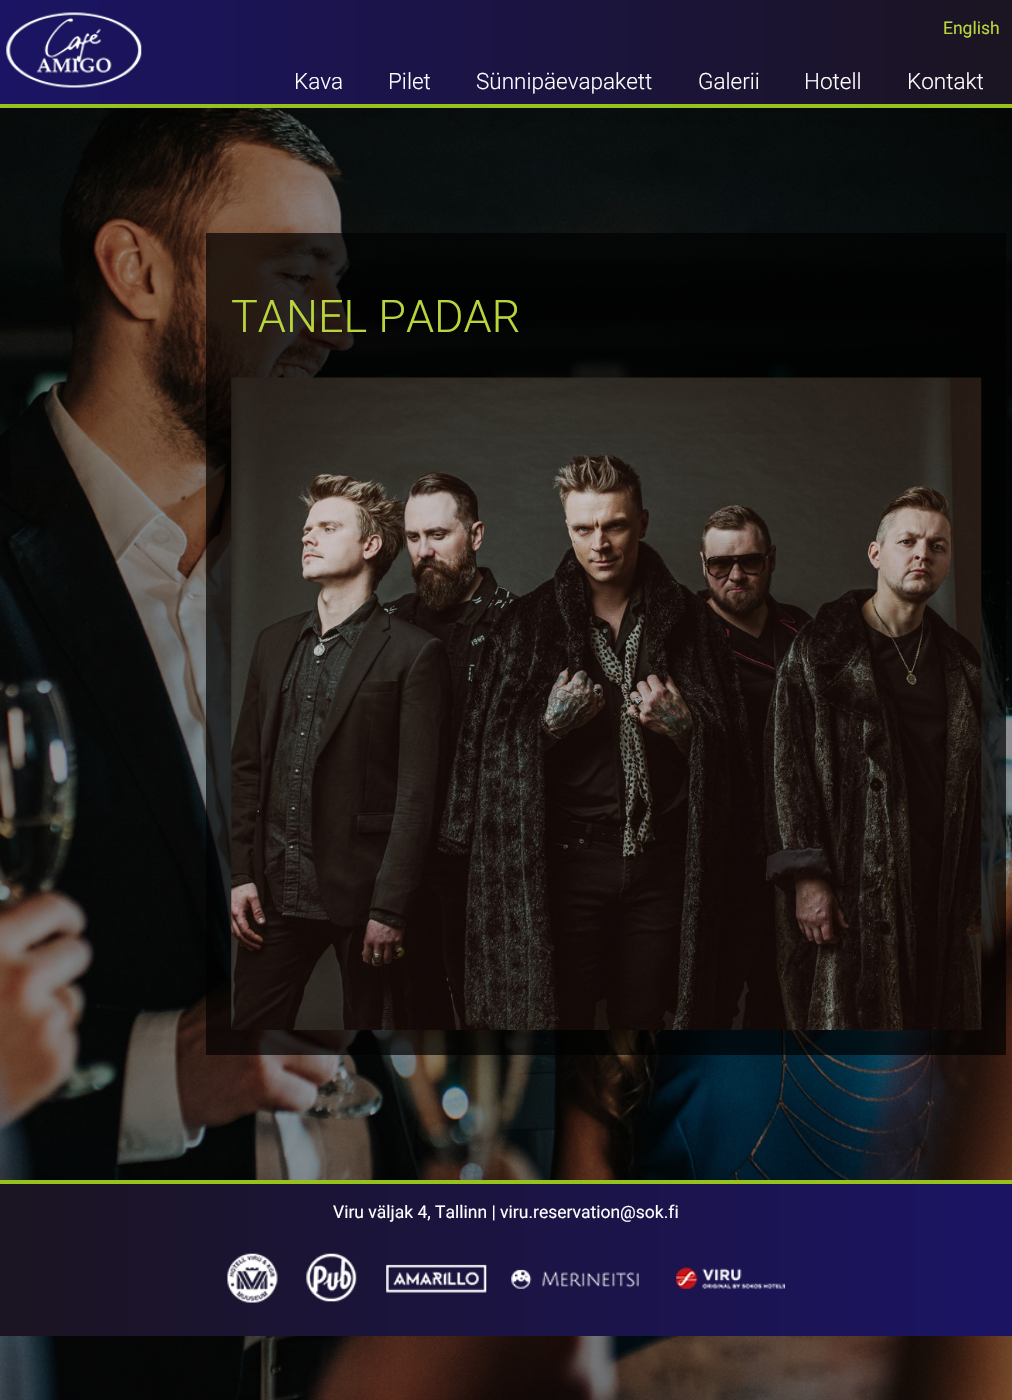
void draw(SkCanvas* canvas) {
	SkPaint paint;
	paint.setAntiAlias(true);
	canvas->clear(0xffffffff);
	canvas->drawImageRect(SkImages::DeferredFromEncodedData(SkData::MakeFromFileName("img1.png")), SkRect::MakeXYWH(0, 108, 1012, 1292), SkSamplingOptions());
	{
		const SkColor colors[] = {0xff1b1464, 0xff1b1421};
		const float stops[] = {0, 1};
		const SkPoint ends[] = {{0, 52}, {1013, 52}};
		paint.setShader(SkGradientShader::MakeLinear(ends, colors, stops, 2, SkTileMode::kClamp));
		paint.setAlpha(255);
	}
	canvas->drawRect(SkRect::MakeXYWH(0, 0, 1012, 104), paint);
	paint.setShader(nullptr);
	paint.setColor(0xff96c21e);
	canvas->drawRect(SkRect::MakeXYWH(0, 104, 1012, 4), paint);
	canvas->drawImageRect(SkImages::DeferredFromEncodedData(SkData::MakeFromFileName("img2.png")), SkRect::MakeXYWH(6, 12, 136, 76), SkSamplingOptions());
	SkFont f1(fontMgr->matchFamilyStyle("Roboto", SkFontStyle::Normal()), 17.5);
	f1.setSubpixel(true);
	paint.setColor(0xffb9d53d);
	canvas->drawString("English", 943, 34, f1, paint);
	SkFont f2(fontMgr->matchFamilyStyle("Roboto", SkFontStyle(300, SkFontStyle::kNormal_Width, SkFontStyle::kUpright_Slant)), 22.5);
	f2.setSubpixel(true);
	paint.setColor(0xffffffff);
	canvas->drawString("Kava", 294, 89, f2, paint);
	canvas->drawString("Pilet", 388, 89, f2, paint);
	canvas->drawString("Sünnipäevapakett", 476, 89, f2, paint);
	canvas->drawString("Galerii", 698, 89, f2, paint);
	canvas->drawString("Hotell", 804, 89, f2, paint);
	canvas->drawString("Kontakt", 907, 89, f2, paint);
	paint.setColor(0xb3000000);
	canvas->drawRect(SkRect::MakeXYWH(206, 233, 800, 822), paint);
	SkFont f3(fontMgr->matchFamilyStyle("Roboto", SkFontStyle(300, SkFontStyle::kNormal_Width, SkFontStyle::kUpright_Slant)), 45);
	f3.setSubpixel(true);
	paint.setColor(0xffb9d53d);
	canvas->drawString("TANEL PADAR", 231, 332, f3, paint);
	canvas->drawImageRect(SkImages::DeferredFromEncodedData(SkData::MakeFromFileName("img3.png")), SkRect::MakeXYWH(231, 377, 751, 653), SkSamplingOptions());
	{
		const SkColor colors[] = {0xff1b1421, 0xff1b1464};
		const float stops[] = {0, 1};
		const SkPoint ends[] = {{0, 1260}, {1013, 1260}};
		paint.setShader(SkGradientShader::MakeLinear(ends, colors, stops, 2, SkTileMode::kClamp));
		paint.setAlpha(255);
	}
	canvas->drawRect(SkRect::MakeXYWH(0, 1184, 1012, 152), paint);
	paint.setShader(nullptr);
	paint.setColor(0xff96c21e);
	canvas->drawRect(SkRect::MakeXYWH(0, 1180, 1012, 4), paint);
	paint.setColor(0xffffffff);
	canvas->drawString("Viru väljak 4, Tallinn | viru.reservation@sok.fi", 333, 1218, f1, paint);
	canvas->drawImageRect(SkImages::DeferredFromEncodedData(SkData::MakeFromFileName("img4.png")), SkRect::MakeXYWH(227, 1253, 51, 50), SkSamplingOptions());
	canvas->drawImageRect(SkImages::DeferredFromEncodedData(SkData::MakeFromFileName("img5.png")), SkRect::MakeXYWH(306, 1253, 51, 49), SkSamplingOptions());
	canvas->drawImageRect(SkImages::DeferredFromEncodedData(SkData::MakeFromFileName("img6.png")), SkRect::MakeXYWH(386, 1264, 101, 29), SkSamplingOptions());
	canvas->drawImageRect(SkImages::DeferredFromEncodedData(SkData::MakeFromFileName("img7.png")), SkRect::MakeXYWH(511, 1269, 128, 20), SkSamplingOptions());
	canvas->drawImageRect(SkImages::DeferredFromEncodedData(SkData::MakeFromFileName("img8.png")), SkRect::MakeXYWH(676, 1267, 109, 22), SkSamplingOptions());
}
